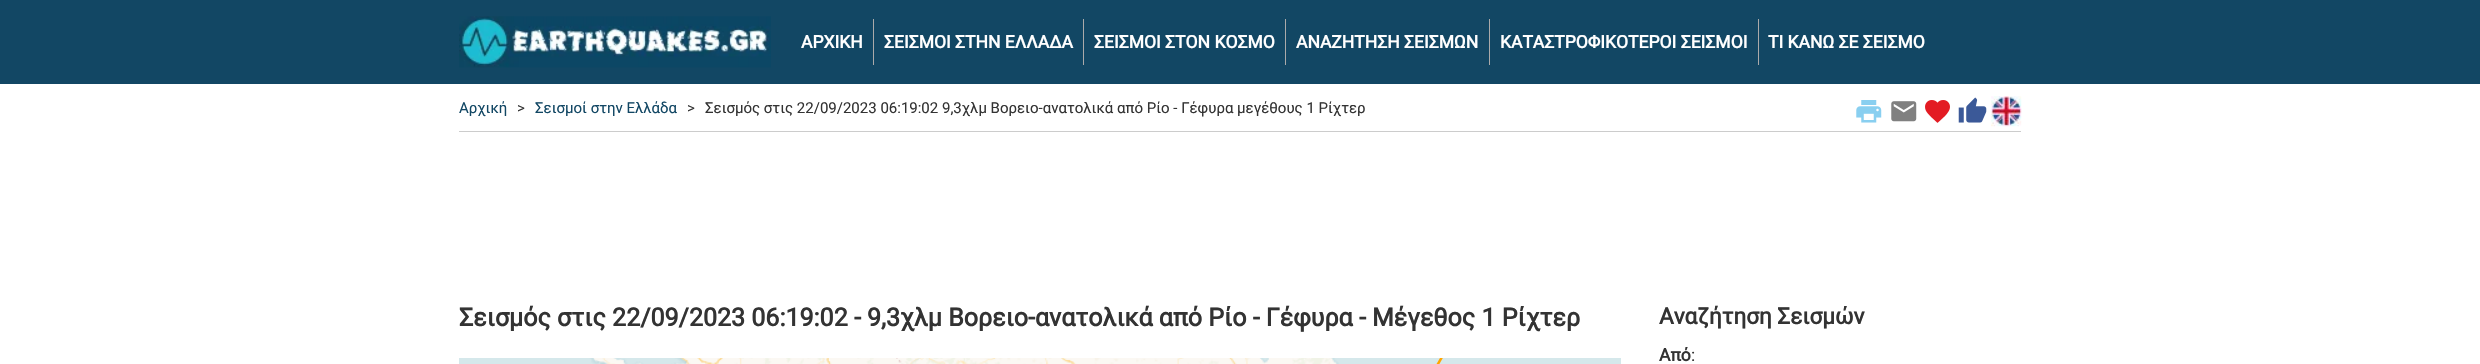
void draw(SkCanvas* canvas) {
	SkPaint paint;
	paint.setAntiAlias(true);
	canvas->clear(0xffffffff);
	paint.setColor(0xff124764);
	canvas->drawRect(SkRect::MakeXYWH(0, 0, 2480, 84), paint);
	canvas->drawImageRect(SkImages::DeferredFromEncodedData(SkData::MakeFromFileName("img1.png")), SkRect::MakeXYWH(459, 16, 312, 52), SkSamplingOptions());
	SkFont f1(fontMgr->matchFamilyStyle("Roboto", SkFontStyle::Bold()), 17.5);
	f1.setSubpixel(true);
	paint.setColor(0xffffffff);
	canvas->drawString("ΑΡΧΙΚΗ", 801, 48, f1, paint);
	paint.setColor(0xffaaaaaa);
	canvas->drawRect(SkRect::MakeXYWH(873, 19, 1, 46), paint);
	paint.setColor(0xffffffff);
	canvas->drawString("ΣΕΙΣΜΟΙ ΣΤΗΝ ΕΛΛΑΔΑ", 884, 48, f1, paint);
	paint.setColor(0xffaaaaaa);
	canvas->drawRect(SkRect::MakeXYWH(1083, 19, 1, 46), paint);
	paint.setColor(0xffffffff);
	canvas->drawString("ΣΕΙΣΜΟΙ ΣΤΟΝ ΚΟΣΜΟ", 1094, 48, f1, paint);
	paint.setColor(0xffaaaaaa);
	canvas->drawRect(SkRect::MakeXYWH(1285, 19, 1, 46), paint);
	paint.setColor(0xffffffff);
	canvas->drawString("ΑΝΑΖΗΤΗΣΗ ΣΕΙΣΜΩΝ", 1296, 48, f1, paint);
	paint.setColor(0xffaaaaaa);
	canvas->drawRect(SkRect::MakeXYWH(1489, 19, 1, 46), paint);
	paint.setColor(0xffffffff);
	canvas->drawString("ΚΑΤΑΣΤΡΟΦΙΚΟΤΕΡΟΙ ΣΕΙΣΜΟΙ", 1500, 48, f1, paint);
	paint.setColor(0xffaaaaaa);
	canvas->drawRect(SkRect::MakeXYWH(1758, 19, 1, 46), paint);
	paint.setColor(0xffffffff);
	canvas->drawString("ΤΙ ΚΑΝΩ ΣΕ ΣΕΙΣΜΟ", 1768, 48, f1, paint);
	paint.setColor(0xffcccccc);
	canvas->drawRect(SkRect::MakeXYWH(459, 131, 1562, 1), paint);
	SkFont f2(fontMgr->matchFamilyStyle("Roboto", SkFontStyle::Normal()), 15);
	f2.setSubpixel(true);
	paint.setColor(0xff124764);
	canvas->drawString("Αρχική", 459, 113, f2, paint);
	paint.setColor(0xff333333);
	canvas->drawString(">", 517, 113, f2, paint);
	paint.setColor(0xff124764);
	canvas->drawString("Σεισμοί στην Ελλάδα", 535, 113, f2, paint);
	paint.setColor(0xff333333);
	canvas->drawString(">", 687, 113, f2, paint);
	canvas->drawString("Σεισμός στις 22/09/2023 06:19:02 9,3χλμ Βορειο-ανατολικά από Ρίο - Γέφυρα μεγέθους 1 Ρίχτερ", 705, 113, f2, paint);
	canvas->drawImageRect(SkImages::DeferredFromEncodedData(SkData::MakeFromFileName("img2.png")), SkRect::MakeXYWH(1856, 100, 26, 23), SkSamplingOptions());
	canvas->drawImageRect(SkImages::DeferredFromEncodedData(SkData::MakeFromFileName("img3.png")), SkRect::MakeXYWH(1891, 101, 26, 21), SkSamplingOptions());
	canvas->drawImageRect(SkImages::DeferredFromEncodedData(SkData::MakeFromFileName("img4.png")), SkRect::MakeXYWH(1925, 100, 25, 23), SkSamplingOptions());
	canvas->drawImageRect(SkImages::DeferredFromEncodedData(SkData::MakeFromFileName("img5.png")), SkRect::MakeXYWH(1958, 97, 29, 26), SkSamplingOptions());
	canvas->drawImageRect(SkImages::DeferredFromEncodedData(SkData::MakeFromFileName("img6.png")), SkRect::MakeXYWH(1991, 96, 31, 31), SkSamplingOptions());
	SkFont f3(fontMgr->matchFamilyStyle("Roboto", SkFontStyle::Bold()), 25);
	f3.setSubpixel(true);
	canvas->drawString("Σεισμός στις 22/09/2023 06:19:02 - 9,3χλμ Βορειο-ανατολικά από Ρίο - Γέφυρα - Μέγεθος 1 Ρίχτερ", 459, 326, f3, paint);
	paint.setColor(0xffd5e8eb);
	canvas->drawRect(SkRect::MakeXYWH(459, 358, 94, 6), paint);
	canvas->drawImageRect(SkImages::DeferredFromEncodedData(SkData::MakeFromFileName("img7.png")), SkRect::MakeXYWH(553, 358, 320, 6), SkSamplingOptions());
	canvas->drawImageRect(SkImages::DeferredFromEncodedData(SkData::MakeFromFileName("img8.png")), SkRect::MakeXYWH(873, 358, 320, 6), SkSamplingOptions());
	canvas->drawImageRect(SkImages::DeferredFromEncodedData(SkData::MakeFromFileName("img9.png")), SkRect::MakeXYWH(1193, 358, 320, 6), SkSamplingOptions());
	canvas->drawRect(SkRect::MakeXYWH(1513, 358, 108, 6), paint);
	canvas->drawImageRect(SkImages::DeferredFromEncodedData(SkData::MakeFromFileName("img10.png")), SkRect::MakeXYWH(1436, 358, 7, 6), SkSamplingOptions());
	SkFont f4(fontMgr->matchFamilyStyle("Roboto", SkFontStyle::Bold()), 22.5);
	f4.setSubpixel(true);
	paint.setColor(0xff333333);
	canvas->drawString("Αναζήτηση Σεισμών", 1659, 324, f4, paint);
	canvas->drawString("Από", 1659, 361, f1, paint);
	SkFont f5(fontMgr->matchFamilyStyle("Roboto", SkFontStyle::Normal()), 17.5);
	f5.setSubpixel(true);
	canvas->drawString(":", 1691, 361, f5, paint);
}
